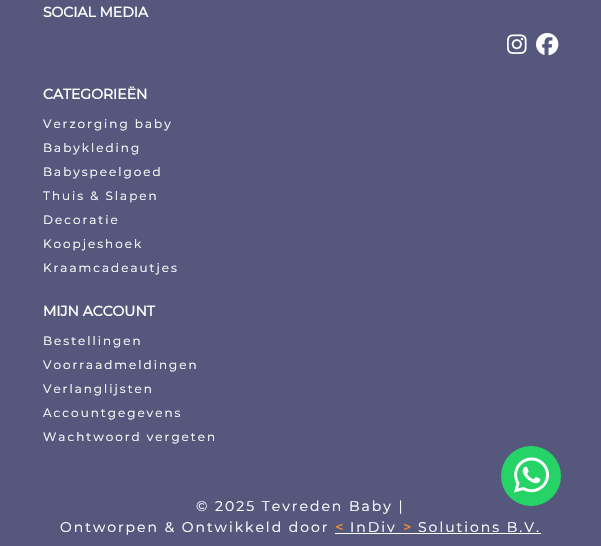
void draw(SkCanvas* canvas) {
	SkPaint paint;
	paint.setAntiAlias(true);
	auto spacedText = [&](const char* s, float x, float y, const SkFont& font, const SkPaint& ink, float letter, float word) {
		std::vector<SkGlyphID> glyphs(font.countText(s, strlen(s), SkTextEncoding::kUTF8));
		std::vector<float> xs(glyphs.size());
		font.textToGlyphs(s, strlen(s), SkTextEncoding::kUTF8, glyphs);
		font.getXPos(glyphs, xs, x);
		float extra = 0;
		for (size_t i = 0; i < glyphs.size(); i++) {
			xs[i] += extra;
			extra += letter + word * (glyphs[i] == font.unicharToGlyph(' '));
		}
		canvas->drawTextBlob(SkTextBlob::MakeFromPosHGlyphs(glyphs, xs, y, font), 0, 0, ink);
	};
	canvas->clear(0xff55587c);
	SkFont f1(fontMgr->matchFamilyStyle("Montserrat", SkFontStyle::Bold()), 14);
	f1.setSubpixel(true);
	paint.setColor(0xffffffff);
	canvas->drawString("SOCIAL MEDIA", 43, 17, f1, paint);
	canvas->drawImageRect(SkImages::DeferredFromEncodedData(SkData::MakeFromFileName("img1.png")), SkRect::MakeXYWH(507, 34, 20, 20), SkSamplingOptions());
	canvas->drawImageRect(SkImages::DeferredFromEncodedData(SkData::MakeFromFileName("img2.png")), SkRect::MakeXYWH(536, 33, 23, 23), SkSamplingOptions());
	canvas->drawString("CATEGORIEËN", 43, 99, f1, paint);
	SkFont f2(fontMgr->matchFamilyStyle("Montserrat", SkFontStyle(100, SkFontStyle::kNormal_Width, SkFontStyle::kUpright_Slant)), 12);
	f2.setSubpixel(true);
	spacedText("Verzorging baby", 43, 128, f2, paint, 2, 0);
	spacedText("Babykleding", 43, 152, f2, paint, 2, 0);
	spacedText("Babyspeelgoed", 43, 176, f2, paint, 2, 0);
	spacedText("Thuis & Slapen", 43, 200, f2, paint, 2, 0);
	spacedText("Decoratie", 43, 224, f2, paint, 2, 0);
	spacedText("Koopjeshoek", 43, 248, f2, paint, 2, 0);
	spacedText("Kraamcadeautjes", 43, 272, f2, paint, 2, 0);
	canvas->drawString("MIJN ACCOUNT", 43, 316, f1, paint);
	spacedText("Bestellingen", 43, 345, f2, paint, 2, 0);
	spacedText("Voorraadmeldingen", 43, 369, f2, paint, 2, 0);
	spacedText("Verlanglijsten", 43, 393, f2, paint, 2, 0);
	spacedText("Accountgegevens", 43, 417, f2, paint, 2, 0);
	spacedText("Wachtwoord vergeten", 43, 441, f2, paint, 2, 0);
	SkFont f3(fontMgr->matchFamilyStyle("Montserrat", SkFontStyle(100, SkFontStyle::kNormal_Width, SkFontStyle::kUpright_Slant)), 14);
	f3.setSubpixel(true);
	spacedText("© 2025 Tevreden Baby |", 196, 511, f3, paint, 2, 0);
	spacedText("Ontworpen & Ontwikkeld door", 60, 532, f3, paint, 2, 0);
	paint.setColor(0xfff0892e);
	spacedText("<", 335, 532, f1, paint, 2, 0);
	paint.setColor(0xffffffff);
	canvas->drawRect(SkRect::MakeXYWH(335, 533, 206, 1), paint);
	spacedText("InDiv", 350, 532, f3, paint, 2, 0);
	paint.setColor(0xfff0892e);
	spacedText(">", 403, 532, f1, paint, 2, 0);
	paint.setColor(0xffffffff);
	spacedText("Solutions B.V.", 418, 532, f3, paint, 2, 0);
	paint.setColor(0xff25d366);
	canvas->drawCircle(531, 476, 30, paint);
	canvas->drawImageRect(SkImages::DeferredFromEncodedData(SkData::MakeFromFileName("img3.png")), SkRect::MakeXYWH(514, 457, 35, 36), SkSamplingOptions());
}
